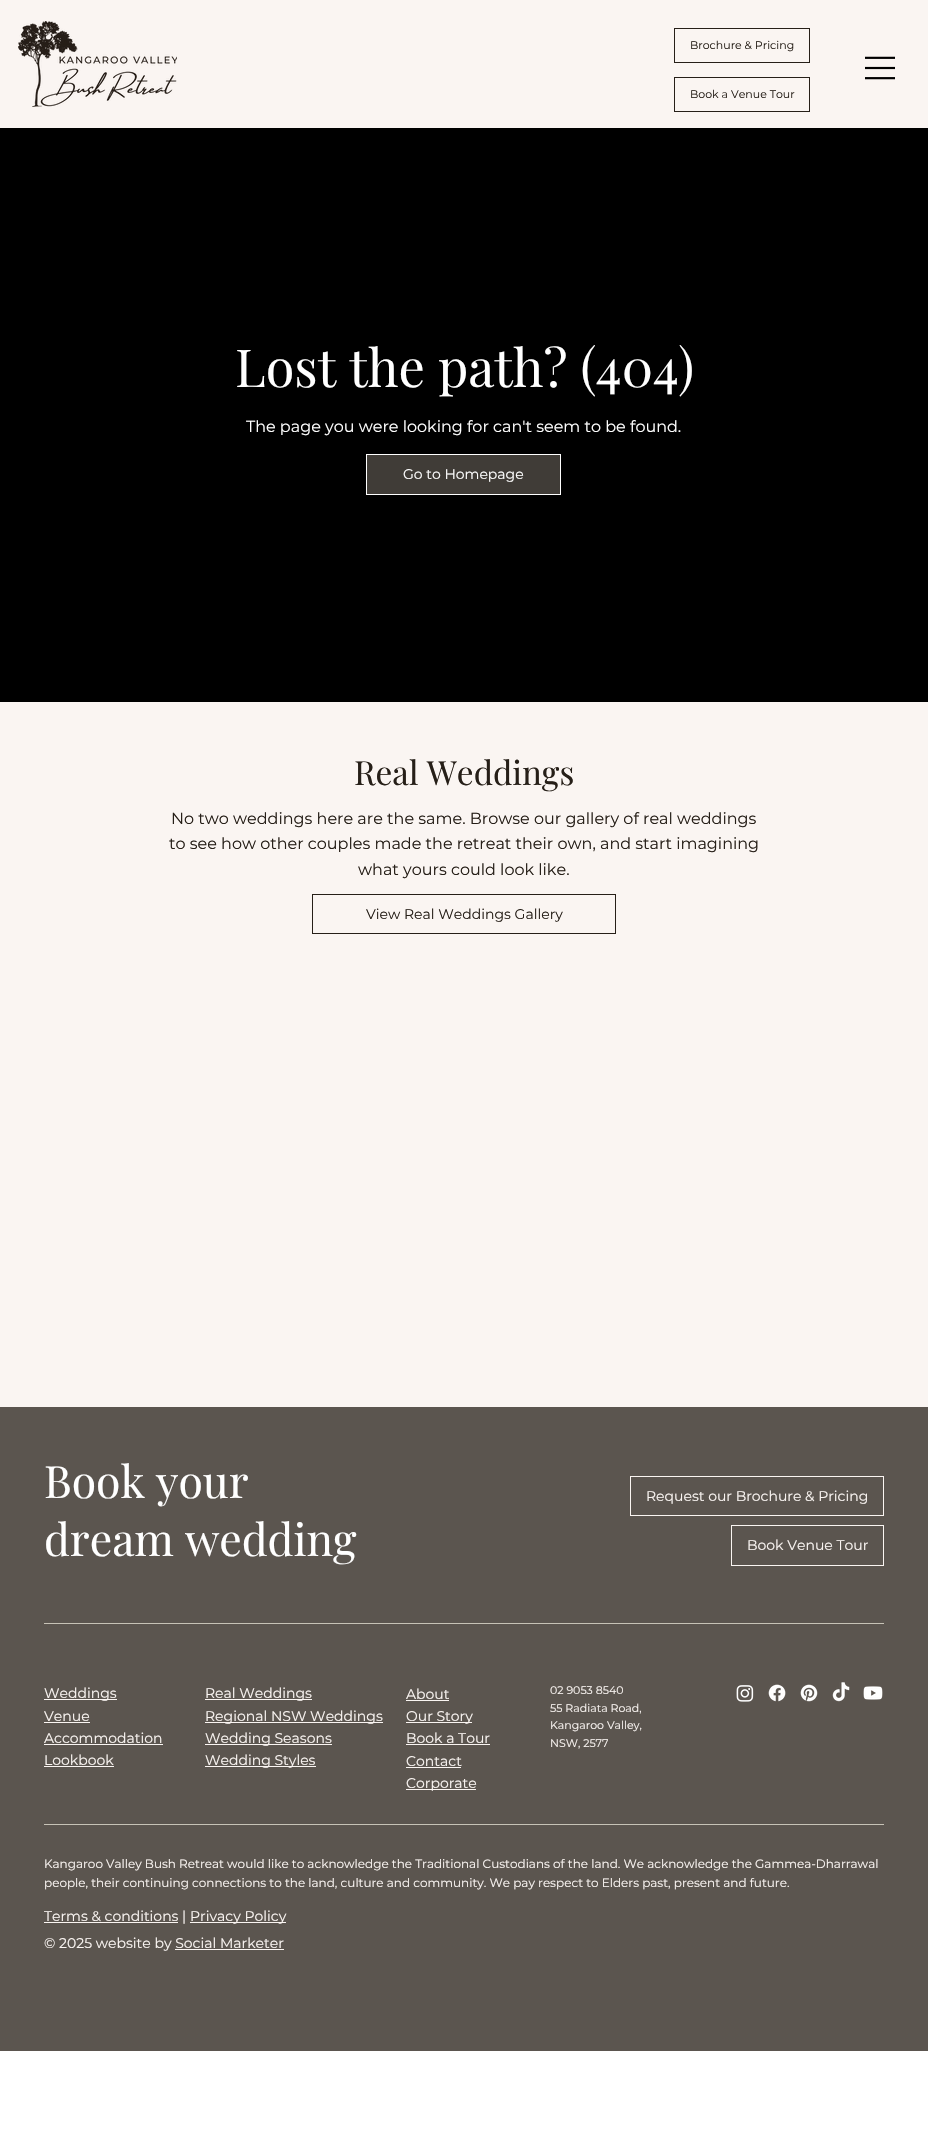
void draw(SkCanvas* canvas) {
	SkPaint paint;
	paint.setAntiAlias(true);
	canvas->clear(0xffffffff);
	paint.setColor(0xfffaf5f2);
	canvas->drawRect(SkRect::MakeXYWH(0, 0, 928, 1407), paint);
	canvas->drawImageRect(SkImages::DeferredFromEncodedData(SkData::MakeFromFileName("img1.png")), SkRect::MakeXYWH(18, 21, 159, 86), SkSamplingOptions());
	paint.setStroke(true);
	paint.setStrokeWidth(1);
	paint.setColor(0xff261f18);
	canvas->drawRect(SkRect::MakeXYWH(674.5, 28.5, 135, 34), paint);
	SkFont f1(fontMgr->matchFamilyStyle("Montserrat", SkFontStyle::Normal()), 11);
	f1.setSubpixel(true);
	paint.setStroke(false);
	canvas->drawString("Brochure & Pricing", 690, 49, f1, paint);
	paint.setStroke(true);
	canvas->drawRect(SkRect::MakeXYWH(674.5, 77.5, 135, 34), paint);
	paint.setStroke(false);
	canvas->drawString("Book a Venue Tour", 690, 98, f1, paint);
	canvas->drawImageRect(SkImages::DeferredFromEncodedData(SkData::MakeFromFileName("img2.png")), SkRect::MakeXYWH(865, 56, 30, 24), SkSamplingOptions());
	paint.setColor(0xff000000);
	canvas->drawRect(SkRect::MakeXYWH(0, 128, 928, 574), paint);
	SkFont f2(fontMgr->matchFamilyStyle("Playfair Display", SkFontStyle::Normal()), 52.25);
	f2.setSubpixel(true);
	paint.setColor(0xffffffff);
	canvas->drawString("Lost the path? (404)", 235, 387, f2, paint);
	SkFont f3(fontMgr->matchFamilyStyle("Montserrat", SkFontStyle::Normal()), 16);
	f3.setSubpixel(true);
	canvas->drawString("The page you were looking for can't seem to be found.", 246, 432, f3, paint);
	paint.setColor(0xff403c37);
	canvas->drawRect(SkRect::MakeXYWH(366.5, 454.5, 194, 40), paint);
	paint.setStroke(true);
	paint.setColor(0xffffffff);
	canvas->drawRect(SkRect::MakeXYWH(366.5, 454.5, 194, 40), paint);
	SkFont f4(fontMgr->matchFamilyStyle("Montserrat", SkFontStyle::Normal()), 14);
	f4.setSubpixel(true);
	paint.setStroke(false);
	canvas->drawString("Go to Homepage", 403, 479, f4, paint);
	SkFont f5(fontMgr->matchFamilyStyle("Playfair Display", SkFontStyle::Normal()), 33.25);
	f5.setSubpixel(true);
	paint.setColor(0xff261f18);
	canvas->drawString("Real Weddings", 354, 785, f5, paint);
	canvas->drawString("No two weddings here are the same. Browse our gallery of real weddings", 171, 824, f3, paint);
	canvas->drawString("to see how other couples made the retreat their own, and start imagining", 169, 849, f3, paint);
	canvas->drawString("what yours could look like.", 358, 875, f3, paint);
	paint.setStroke(true);
	canvas->drawRect(SkRect::MakeXYWH(312.5, 894.5, 303, 39), paint);
	paint.setStroke(false);
	canvas->drawString("View Real Weddings Gallery", 366, 919, f4, paint);
	paint.setColor(0xff5b554f);
	canvas->drawRect(SkRect::MakeXYWH(0, 1407, 928, 644), paint);
	SkFont f6(fontMgr->matchFamilyStyle("Playfair Display", SkFontStyle::Normal()), 44.5);
	f6.setSubpixel(true);
	paint.setColor(0xffffffff);
	canvas->drawString("Book your", 44, 1498, f6, paint);
	canvas->drawString("dream wedding", 44, 1556, f6, paint);
	paint.setStroke(true);
	paint.setColor(0xfffaf5f2);
	canvas->drawRect(SkRect::MakeXYWH(630.5, 1476.5, 253, 39), paint);
	paint.setStroke(false);
	canvas->drawString("Request our Brochure & Pricing", 646, 1501, f4, paint);
	paint.setStroke(true);
	canvas->drawRect(SkRect::MakeXYWH(731.5, 1525.5, 152, 40), paint);
	paint.setStroke(false);
	canvas->drawString("Book Venue Tour", 747, 1550, f4, paint);
	paint.setColor(0xffc7c3b7);
	canvas->drawRect(SkRect::MakeXYWH(44, 1623, 840, 1), paint);
	paint.setColor(0xfffaf5f2);
	canvas->drawRect(SkRect::MakeXYWH(44, 1699, 73, 1), paint);
	canvas->drawString("Weddings", 44, 1698, f4, paint);
	canvas->drawString("Venue", 44, 1721, f4, paint);
	canvas->drawRect(SkRect::MakeXYWH(44, 1722, 46, 1), paint);
	canvas->drawString("Accommodation", 44, 1743, f4, paint);
	canvas->drawRect(SkRect::MakeXYWH(44, 1744, 119, 1), paint);
	canvas->drawString("Lookbook", 44, 1765, f4, paint);
	canvas->drawRect(SkRect::MakeXYWH(44, 1766, 70, 1), paint);
	canvas->drawRect(SkRect::MakeXYWH(205, 1699, 107, 1), paint);
	canvas->drawString("Real Weddings", 205, 1698, f4, paint);
	canvas->drawRect(SkRect::MakeXYWH(205, 1722, 178, 1), paint);
	canvas->drawString("Regional NSW Weddings", 205, 1721, f4, paint);
	canvas->drawRect(SkRect::MakeXYWH(205, 1744, 127, 1), paint);
	canvas->drawString("Wedding Seasons", 205, 1743, f4, paint);
	canvas->drawRect(SkRect::MakeXYWH(205, 1766, 111, 1), paint);
	canvas->drawString("Wedding Styles", 205, 1765, f4, paint);
	canvas->drawString("About", 406, 1699, f4, paint);
	canvas->drawRect(SkRect::MakeXYWH(406, 1700, 43, 1), paint);
	canvas->drawRect(SkRect::MakeXYWH(406, 1722, 66, 1), paint);
	canvas->drawString("Our Story", 406, 1721, f4, paint);
	canvas->drawString("Book a Tour", 406, 1743, f4, paint);
	canvas->drawRect(SkRect::MakeXYWH(406, 1744, 84, 1), paint);
	canvas->drawString("Contact", 406, 1766, f4, paint);
	canvas->drawRect(SkRect::MakeXYWH(406, 1767, 55, 1), paint);
	canvas->drawRect(SkRect::MakeXYWH(406, 1789, 70, 1), paint);
	canvas->drawString("Corporate", 406, 1788, f4, paint);
	canvas->drawString("02 9053 8540", 550, 1694, f1, paint);
	canvas->drawString("55 Radiata Road,", 550, 1712, f1, paint);
	canvas->drawString("Kangaroo Valley,", 550, 1729, f1, paint);
	canvas->drawString("NSW, 2577", 550, 1747, f1, paint);
	canvas->drawImageRect(SkImages::DeferredFromEncodedData(SkData::MakeFromFileName("img3.png")), SkRect::MakeXYWH(736, 1685, 18, 17), SkSamplingOptions());
	canvas->drawImageRect(SkImages::DeferredFromEncodedData(SkData::MakeFromFileName("img4.png")), SkRect::MakeXYWH(768, 1684, 18, 18), SkSamplingOptions());
	canvas->drawImageRect(SkImages::DeferredFromEncodedData(SkData::MakeFromFileName("img5.png")), SkRect::MakeXYWH(800, 1684, 18, 18), SkSamplingOptions());
	canvas->drawImageRect(SkImages::DeferredFromEncodedData(SkData::MakeFromFileName("img6.png")), SkRect::MakeXYWH(832, 1682, 18, 20), SkSamplingOptions());
	canvas->drawImageRect(SkImages::DeferredFromEncodedData(SkData::MakeFromFileName("img7.png")), SkRect::MakeXYWH(863, 1686, 20, 14), SkSamplingOptions());
	paint.setColor(0xffc7c3b7);
	canvas->drawRect(SkRect::MakeXYWH(44, 1824, 840, 1), paint);
	SkFont f7(fontMgr->matchFamilyStyle("Montserrat", SkFontStyle::Normal()), 12);
	f7.setSubpixel(true);
	paint.setColor(0xfffaf5f2);
	canvas->drawString("Kangaroo Valley Bush Retreat would like to acknowledge the Traditional Custodians of the land. We acknowledge the Gammea-Dharrawal", 44, 1868, f7, paint);
	canvas->drawString("people, their continuing connections to the land, culture and community. We pay respect to Elders past, present and future.", 44, 1887, f7, paint);
	canvas->drawRect(SkRect::MakeXYWH(44, 1922, 134, 1), paint);
	canvas->drawString("Terms & conditions |", 44, 1921, f4, paint);
	canvas->drawRect(SkRect::MakeXYWH(190, 1922, 96, 1), paint);
	canvas->drawString("Privacy Policy", 190, 1921, f4, paint);
	canvas->drawString("© 2025 website by Social Marketer", 44, 1948, f4, paint);
	canvas->drawRect(SkRect::MakeXYWH(175, 1949, 109, 1), paint);
}
